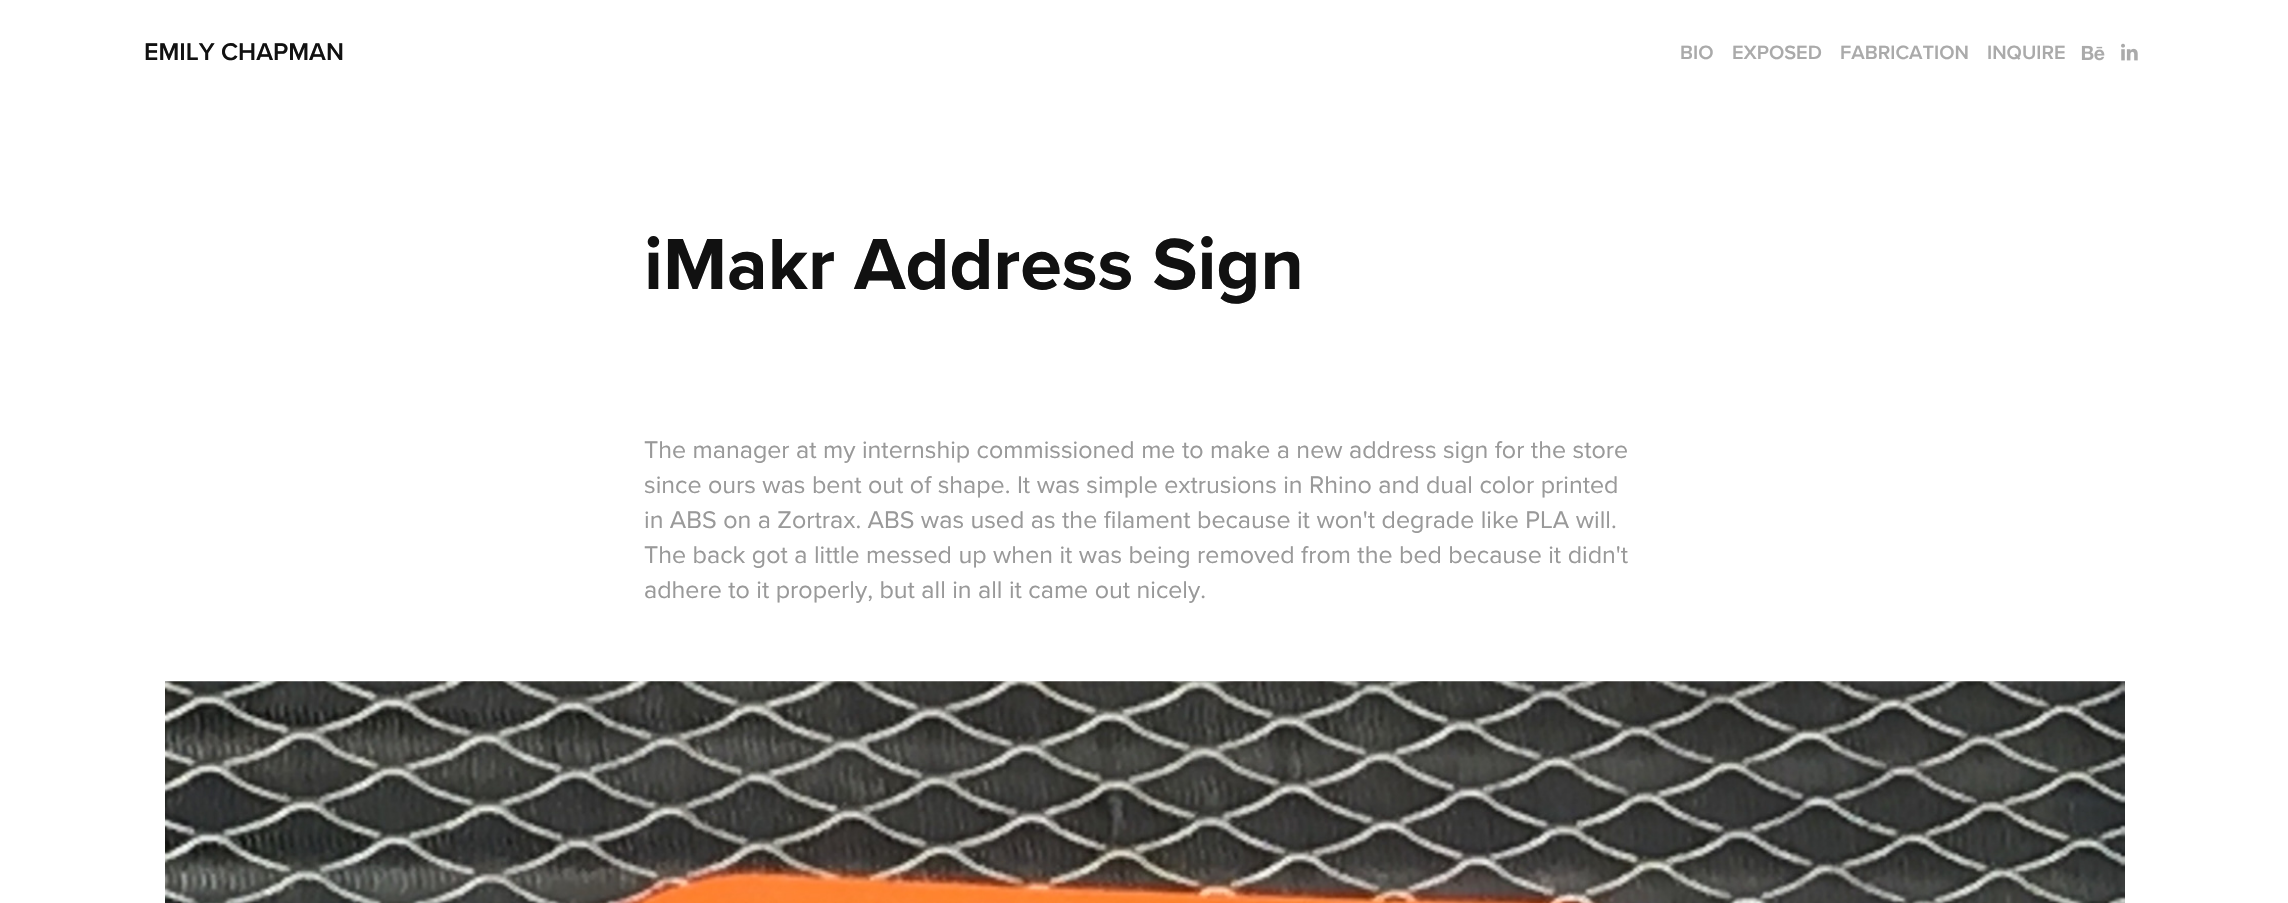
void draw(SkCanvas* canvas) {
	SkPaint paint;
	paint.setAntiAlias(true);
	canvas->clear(0xffffffff);
	SkFont f1(fontMgr->matchFamilyStyle("Proxima Nova", SkFontStyle(600, SkFontStyle::kNormal_Width, SkFontStyle::kUpright_Slant)), 25);
	f1.setSubpixel(true);
	paint.setColor(0xff111111);
	canvas->drawString("EMILY CHAPMAN", 144, 60, f1, paint);
	SkFont f2(fontMgr->matchFamilyStyle("Proxima Nova", SkFontStyle(600, SkFontStyle::kNormal_Width, SkFontStyle::kUpright_Slant)), 20);
	f2.setSubpixel(true);
	paint.setColor(0xffaaaaaa);
	canvas->drawString("BIO", 1680, 59, f2, paint);
	canvas->drawString("EXPOSED", 1732, 59, f2, paint);
	canvas->drawString("FABRICATION", 1840, 59, f2, paint);
	canvas->drawString("INQUIRE", 1987, 59, f2, paint);
	canvas->drawImageRect(SkImages::DeferredFromEncodedData(SkData::MakeFromFileName("img1.png")), SkRect::MakeXYWH(2081, 45, 24, 16), SkSamplingOptions());
	canvas->drawImageRect(SkImages::DeferredFromEncodedData(SkData::MakeFromFileName("img2.png")), SkRect::MakeXYWH(2121, 43, 17, 18), SkSamplingOptions());
	SkFont f3(fontMgr->matchFamilyStyle("Proxima Nova", SkFontStyle::Bold()), 75);
	f3.setSubpixel(true);
	paint.setColor(0xff111111);
	canvas->drawString("iMakr Address Sign", 644, 289, f3, paint);
	SkFont f4(fontMgr->matchFamilyStyle("Proxima Nova", SkFontStyle::Normal()), 25);
	f4.setSubpixel(true);
	paint.setColor(0xff999999);
	canvas->drawString("The manager at my internship commissioned me to make a new address sign for the store", 644, 458, f4, paint);
	canvas->drawString("since ours was bent out of shape. It was simple extrusions in Rhino and dual color printed", 644, 493, f4, paint);
	canvas->drawString("in ABS on a Zortrax. ABS was used as the filament because it won't degrade like PLA will.", 644, 528, f4, paint);
	canvas->drawString("The back got a little messed up when it was being removed from the bed because it didn't", 644, 563, f4, paint);
	canvas->drawString("adhere to it properly, but all in all it came out nicely.", 644, 598, f4, paint);
	canvas->drawImageRect(SkImages::DeferredFromEncodedData(SkData::MakeFromFileName("img3.png")), SkRect::MakeXYWH(165, 681, 1960, 222), SkSamplingOptions());
}
